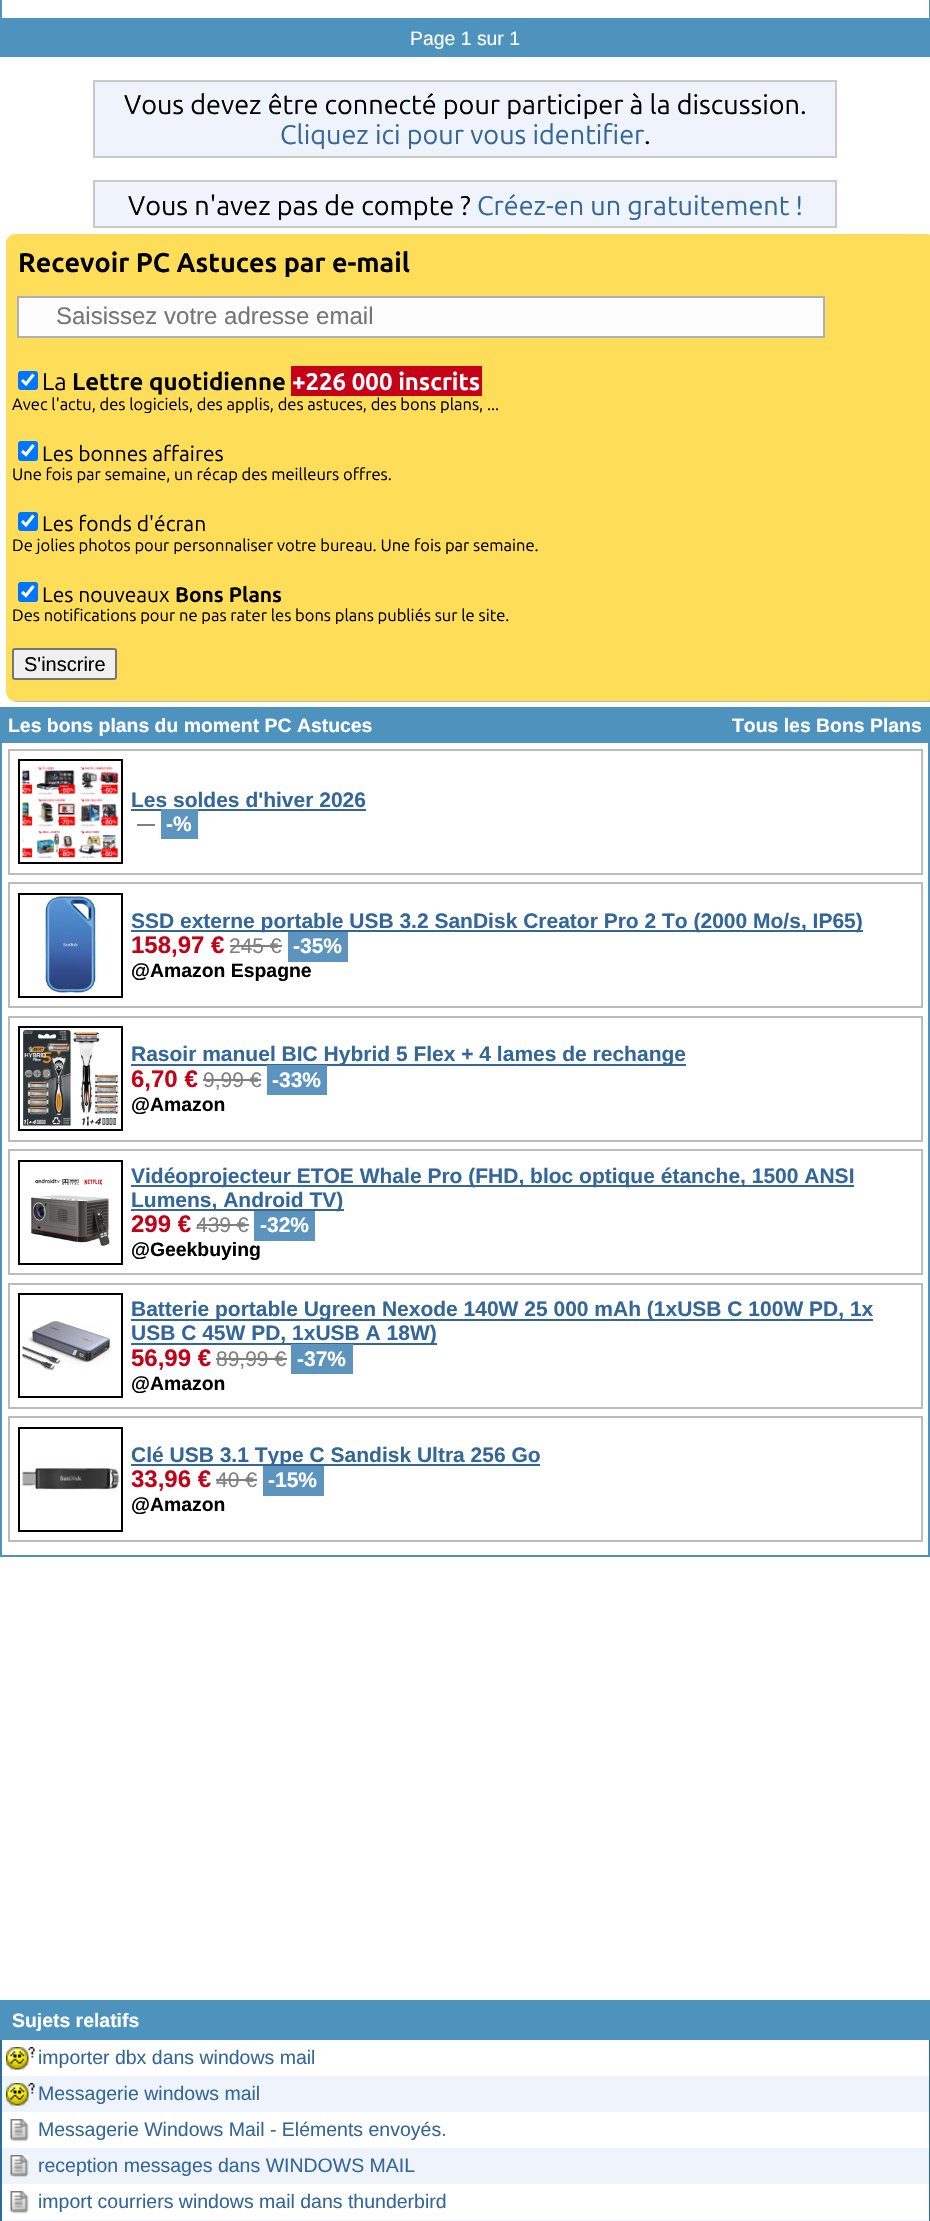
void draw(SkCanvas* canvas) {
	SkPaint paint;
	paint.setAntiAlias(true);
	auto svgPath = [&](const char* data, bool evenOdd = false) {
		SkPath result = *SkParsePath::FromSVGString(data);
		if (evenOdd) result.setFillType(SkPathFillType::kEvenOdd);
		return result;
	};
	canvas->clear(0xffffffff);
	paint.setColor(0xff4e93bd);
	canvas->drawRect(SkRect::MakeXYWH(0, 0, 2, 20), paint);
	canvas->drawRect(SkRect::MakeXYWH(929, 0, 1, 20), paint);
	canvas->drawRect(SkRect::MakeXYWH(2, 18, 928, 2), paint);
	canvas->drawRect(SkRect::MakeXYWH(0, 20, 930, 37), paint);
	SkFont f1(fontMgr->matchFamilyStyle("Liberation Sans", SkFontStyle::Normal()), 19.4);
	f1.setSubpixel(true);
	paint.setColor(0xffffffff);
	canvas->drawString("Page 1 sur 1", 410, 45, f1, paint);
	paint.setColor(0xffeff4fc);
	canvas->drawRect(SkRect::MakeXYWH(94, 81, 742, 76), paint);
	paint.setStroke(true);
	paint.setStrokeWidth(2);
	paint.setColor(0xffc9c9c9);
	canvas->drawRect(SkRect::MakeXYWH(94, 81, 742, 76), paint);
	SkFont f2(fontMgr->matchFamilyStyle("Ubuntu", SkFontStyle::Normal()), 27);
	f2.setSubpixel(true);
	paint.setStroke(false);
	paint.setColor(0xff000000);
	canvas->drawString("Vous devez être connecté pour participer à la discussion.", 124, 114, f2, paint);
	paint.setColor(0xff336699);
	canvas->drawString("Cliquez ici pour vous identifier", 280, 144, f2, paint);
	paint.setColor(0xff000000);
	canvas->drawString(".", 644, 144, f2, paint);
	paint.setColor(0xffeff4fc);
	canvas->drawRect(SkRect::MakeXYWH(94, 181, 742, 46), paint);
	paint.setStroke(true);
	paint.setColor(0xffc9c9c9);
	canvas->drawRect(SkRect::MakeXYWH(94, 181, 742, 46), paint);
	paint.setStroke(false);
	paint.setColor(0xff000000);
	canvas->drawString("Vous n'avez pas de compte ?", 128, 215, f2, paint);
	paint.setColor(0xff336699);
	canvas->drawString("Créez-en un gratuitement !", 477, 215, f2, paint);
	paint.setColor(0xffbbbbbb);
	canvas->drawPath(svgPath("M11 699C12 701 15 702 17 702H929C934 702 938 698 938 693V245C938 242 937 239 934 238C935 239 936 241 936 243V692C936 696 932 700 927 700H15C13 700 12 700 11 699Z"), paint);
	paint.setColor(0xfffede58);
	canvas->drawRoundRect(SkRect::MakeXYWH(6, 234, 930, 467), 9, 9, paint);
	SkFont f3(fontMgr->matchFamilyStyle("Ubuntu", SkFontStyle::Bold()), 27);
	f3.setSubpixel(true);
	paint.setColor(0xff000000);
	canvas->drawString("Recevoir PC Astuces par e-mail", 18, 272, f3, paint);
	paint.setColor(0xfffcfcfc);
	canvas->drawRect(SkRect::MakeXYWH(18, 297, 806, 40), paint);
	paint.setStroke(true);
	paint.setColor(0xffacb1b7);
	canvas->drawRect(SkRect::MakeXYWH(18, 297, 806, 40), paint);
	SkFont f4(fontMgr->matchFamilyStyle("Liberation Sans", SkFontStyle::Normal()), 24);
	f4.setSubpixel(true);
	paint.setStroke(false);
	paint.setColor(0xff757575);
	canvas->drawString("Saisissez votre adresse email", 56, 324, f4, paint);
	paint.setColor(0xff0075ff);
	canvas->drawRoundRect(SkRect::MakeXYWH(18, 371, 20, 19), 3, 3, paint);
	paint.setStroke(true);
	paint.setStrokeWidth(3.1);
	paint.setColor(0xffffffff);
	canvas->drawPath(svgPath("M22 380L26 384L33.5 374.5"), paint);
	SkFont f5(fontMgr->matchFamilyStyle("Ubuntu", SkFontStyle::Normal()), 24);
	f5.setSubpixel(true);
	paint.setStroke(false);
	paint.setColor(0xff000000);
	canvas->drawString("La", 42, 390, f5, paint);
	SkFont f6(fontMgr->matchFamilyStyle("Ubuntu", SkFontStyle::Bold()), 24);
	f6.setSubpixel(true);
	canvas->drawString("Lettre quotidienne", 72, 390, f6, paint);
	paint.setColor(0xffc60017);
	canvas->drawRect(SkRect::MakeXYWH(291, 366, 191, 30), paint);
	paint.setColor(0xffffffff);
	canvas->drawString("+226 000 inscrits", 292, 390, f6, paint);
	SkFont f7(fontMgr->matchFamilyStyle("Ubuntu", SkFontStyle::Normal()), 16.5);
	f7.setSubpixel(true);
	paint.setColor(0xff000000);
	canvas->drawString("Avec l'actu, des logiciels, des applis, des astuces, des bons plans, ...", 12, 410, f7, paint);
	paint.setColor(0xff0075ff);
	canvas->drawRoundRect(SkRect::MakeXYWH(18, 441, 20, 20), 3, 3, paint);
	paint.setStroke(true);
	paint.setColor(0xffffffff);
	canvas->drawPath(svgPath("M22 451L26 454.5L33.5 445"), paint);
	SkFont f8(fontMgr->matchFamilyStyle("Ubuntu", SkFontStyle::Normal()), 21);
	f8.setSubpixel(true);
	paint.setStroke(false);
	paint.setColor(0xff000000);
	canvas->drawString("Les bonnes affaires", 42, 461, f8, paint);
	canvas->drawString("Une fois par semaine, un récap des meilleurs offres.", 12, 480, f7, paint);
	paint.setColor(0xff0075ff);
	canvas->drawRoundRect(SkRect::MakeXYWH(18, 512, 20, 19), 3, 3, paint);
	paint.setStroke(true);
	paint.setColor(0xffffffff);
	canvas->drawPath(svgPath("M22 521L26 525L33.5 515.5"), paint);
	paint.setStroke(false);
	paint.setColor(0xff000000);
	canvas->drawString("Les fonds d'écran", 42, 531, f8, paint);
	canvas->drawString("De jolies photos pour personnaliser votre bureau. Une fois par semaine.", 12, 551, f7, paint);
	paint.setColor(0xff0075ff);
	canvas->drawRoundRect(SkRect::MakeXYWH(18, 582, 20, 20), 3, 3, paint);
	paint.setStroke(true);
	paint.setColor(0xffffffff);
	canvas->drawPath(svgPath("M22 592L26 595.5L33.5 586"), paint);
	paint.setStroke(false);
	paint.setColor(0xff000000);
	canvas->drawString("Les nouveaux", 42, 602, f8, paint);
	SkFont f9(fontMgr->matchFamilyStyle("Ubuntu", SkFontStyle::Bold()), 21);
	f9.setSubpixel(true);
	canvas->drawString("Bons Plans", 175, 602, f9, paint);
	canvas->drawString("Des notifications pour ne pas rater les bons plans publiés sur le site.", 12, 621, f7, paint);
	paint.setColor(0xffefefef);
	canvas->drawRoundRect(SkRect::MakeXYWH(13, 649, 103, 30), 2, 2, paint);
	paint.setStroke(true);
	paint.setStrokeWidth(2);
	paint.setColor(0xff767676);
	canvas->drawRoundRect(SkRect::MakeXYWH(13, 649, 103, 30), 2, 2, paint);
	SkFont f10(fontMgr->matchFamilyStyle("Liberation Sans", SkFontStyle::Normal()), 20);
	f10.setSubpixel(true);
	paint.setStroke(false);
	paint.setColor(0xff000000);
	canvas->drawString("S'inscrire", 24, 671, f10, paint);
	paint.setStroke(true);
	paint.setColor(0xff4e93bd);
	canvas->drawRect(SkRect::MakeXYWH(1, 708, 928, 848), paint);
	paint.setStroke(false);
	canvas->drawRect(SkRect::MakeXYWH(2, 709, 926, 34), paint);
	SkFont f11(fontMgr->matchFamilyStyle("Liberation Sans", SkFontStyle::Bold()), 19.4);
	f11.setSubpixel(true);
	paint.setColor(0xffffffff);
	canvas->drawString("Les bons plans du moment PC Astuces", 8, 732, f11, paint);
	canvas->drawString("Tous les Bons Plans", 732, 732, f11, paint);
	paint.setStroke(true);
	paint.setColor(0xffbbbbbb);
	canvas->drawRect(SkRect::MakeXYWH(9, 750, 913, 124), paint);
	paint.setColor(0xff000000);
	canvas->drawRect(SkRect::MakeXYWH(19, 760, 103, 103), paint);
	canvas->drawImageRect(SkImages::DeferredFromEncodedData(SkData::MakeFromFileName("img1.png")), SkRect::MakeXYWH(22, 766, 97, 93), SkSamplingOptions());
	SkFont f12(fontMgr->matchFamilyStyle("Liberation Sans", SkFontStyle::Bold()), 21);
	f12.setSubpixel(true);
	paint.setStroke(false);
	paint.setColor(0xff336699);
	canvas->drawString("Les soldes d'hiver 2026", 131, 807, f12, paint);
	canvas->drawRect(SkRect::MakeXYWH(131, 809, 235, 2), paint);
	paint.setColor(0xff808080);
	canvas->drawRect(SkRect::MakeXYWH(137, 824, 18, 2), paint);
	paint.setColor(0xff5c94bd);
	canvas->drawRect(SkRect::MakeXYWH(161, 809, 37, 30), paint);
	paint.setColor(0xffffffff);
	canvas->drawString("-%", 166, 831, f12, paint);
	paint.setStroke(true);
	paint.setColor(0xffbbbbbb);
	canvas->drawRect(SkRect::MakeXYWH(9, 883, 913, 124), paint);
	paint.setColor(0xff000000);
	canvas->drawRect(SkRect::MakeXYWH(19, 894, 103, 103), paint);
	canvas->drawImageRect(SkImages::DeferredFromEncodedData(SkData::MakeFromFileName("img2.png")), SkRect::MakeXYWH(43, 896, 56, 97), SkSamplingOptions());
	paint.setStroke(false);
	paint.setColor(0xff336699);
	canvas->drawRect(SkRect::MakeXYWH(131, 930, 732, 2), paint);
	canvas->drawString("SSD externe portable USB 3.2 SanDisk Creator Pro 2 To (2000 Mo/s, IP65)", 131, 928, f12, paint);
	SkFont f13(fontMgr->matchFamilyStyle("Liberation Sans", SkFontStyle::Bold()), 24);
	f13.setSubpixel(true);
	paint.setColor(0xffc60017);
	canvas->drawString("158,97 €", 131, 953, f13, paint);
	SkFont f14(fontMgr->matchFamilyStyle("Liberation Sans", SkFontStyle::Normal()), 21);
	f14.setSubpixel(true);
	paint.setColor(0xff808080);
	canvas->drawString("245 €", 229, 953, f14, paint);
	canvas->drawRect(SkRect::MakeXYWH(230, 945, 52, 2), paint);
	paint.setColor(0xff5c94bd);
	canvas->drawRect(SkRect::MakeXYWH(288, 932, 60, 30), paint);
	paint.setColor(0xffffffff);
	canvas->drawString("-35%", 293, 953, f12, paint);
	paint.setColor(0xff000000);
	canvas->drawString("@Amazon Espagne", 131, 977, f11, paint);
	paint.setStroke(true);
	paint.setColor(0xffbbbbbb);
	canvas->drawRect(SkRect::MakeXYWH(9, 1017, 913, 124), paint);
	paint.setColor(0xff000000);
	canvas->drawRect(SkRect::MakeXYWH(19, 1027, 103, 103), paint);
	canvas->drawImageRect(SkImages::DeferredFromEncodedData(SkData::MakeFromFileName("img3.png")), SkRect::MakeXYWH(23, 1030, 95, 96), SkSamplingOptions());
	paint.setStroke(false);
	paint.setColor(0xff336699);
	canvas->drawRect(SkRect::MakeXYWH(131, 1064, 555, 2), paint);
	canvas->drawString("Rasoir manuel BIC Hybrid 5 Flex + 4 lames de rechange", 131, 1061, f12, paint);
	paint.setColor(0xffc60017);
	canvas->drawString("6,70 €", 131, 1087, f13, paint);
	paint.setColor(0xff808080);
	canvas->drawString("9,99 €", 203, 1087, f14, paint);
	canvas->drawRect(SkRect::MakeXYWH(203, 1079, 58, 2), paint);
	paint.setColor(0xff5c94bd);
	canvas->drawRect(SkRect::MakeXYWH(267, 1065, 60, 30), paint);
	paint.setColor(0xffffffff);
	canvas->drawString("-33%", 272, 1087, f12, paint);
	paint.setColor(0xff000000);
	canvas->drawString("@Amazon", 131, 1111, f11, paint);
	paint.setStroke(true);
	paint.setColor(0xffbbbbbb);
	canvas->drawRect(SkRect::MakeXYWH(9, 1150, 913, 124), paint);
	paint.setColor(0xff000000);
	canvas->drawRect(SkRect::MakeXYWH(19, 1161, 103, 103), paint);
	canvas->drawImageRect(SkImages::DeferredFromEncodedData(SkData::MakeFromFileName("img4.png")), SkRect::MakeXYWH(31, 1178, 79, 68), SkSamplingOptions());
	paint.setStroke(false);
	paint.setColor(0xff336699);
	canvas->drawRect(SkRect::MakeXYWH(131, 1185, 723, 2), paint);
	canvas->drawString("Vidéoprojecteur ETOE Whale Pro (FHD, bloc optique étanche, 1500 ANSI", 131, 1183, f12, paint);
	canvas->drawRect(SkRect::MakeXYWH(131, 1209, 213, 2), paint);
	canvas->drawString("Lumens, Android TV)", 131, 1207, f12, paint);
	paint.setColor(0xffc60017);
	canvas->drawString("299 €", 131, 1232, f13, paint);
	paint.setColor(0xff808080);
	canvas->drawString("439 €", 196, 1232, f14, paint);
	canvas->drawRect(SkRect::MakeXYWH(197, 1224, 52, 2), paint);
	paint.setColor(0xff5c94bd);
	canvas->drawRect(SkRect::MakeXYWH(254, 1211, 61, 30), paint);
	paint.setColor(0xffffffff);
	canvas->drawString("-32%", 260, 1232, f12, paint);
	paint.setColor(0xff000000);
	canvas->drawString("@Geekbuying", 131, 1256, f11, paint);
	paint.setStroke(true);
	paint.setColor(0xffbbbbbb);
	canvas->drawRect(SkRect::MakeXYWH(9, 1284, 913, 124), paint);
	paint.setColor(0xff000000);
	canvas->drawRect(SkRect::MakeXYWH(19, 1294, 103, 103), paint);
	canvas->drawImageRect(SkImages::DeferredFromEncodedData(SkData::MakeFromFileName("img5.png")), SkRect::MakeXYWH(22, 1320, 90, 51), SkSamplingOptions());
	paint.setStroke(false);
	paint.setColor(0xff336699);
	canvas->drawRect(SkRect::MakeXYWH(131, 1319, 742, 2), paint);
	canvas->drawString("Batterie portable Ugreen Nexode 140W 25 000 mAh (1xUSB C 100W PD, 1x", 131, 1316, f12, paint);
	canvas->drawRect(SkRect::MakeXYWH(131, 1343, 306, 2), paint);
	canvas->drawString("USB C 45W PD, 1xUSB A 18W)", 131, 1340, f12, paint);
	paint.setColor(0xffc60017);
	canvas->drawString("56,99 €", 131, 1366, f13, paint);
	paint.setColor(0xff808080);
	canvas->drawString("89,99 €", 216, 1366, f14, paint);
	canvas->drawRect(SkRect::MakeXYWH(216, 1358, 71, 2), paint);
	paint.setColor(0xff5c94bd);
	canvas->drawRect(SkRect::MakeXYWH(291, 1344, 62, 30), paint);
	paint.setColor(0xffffffff);
	canvas->drawString("-37%", 297, 1366, f12, paint);
	paint.setColor(0xff000000);
	canvas->drawString("@Amazon", 131, 1390, f11, paint);
	paint.setStroke(true);
	paint.setColor(0xffbbbbbb);
	canvas->drawRect(SkRect::MakeXYWH(9, 1417, 913, 124), paint);
	paint.setColor(0xff000000);
	canvas->drawRect(SkRect::MakeXYWH(19, 1428, 103, 103), paint);
	canvas->drawImageRect(SkImages::DeferredFromEncodedData(SkData::MakeFromFileName("img6.png")), SkRect::MakeXYWH(22, 1463, 97, 29), SkSamplingOptions());
	paint.setStroke(false);
	paint.setColor(0xff336699);
	canvas->drawRect(SkRect::MakeXYWH(131, 1464, 409, 2), paint);
	canvas->drawString("Clé USB 3.1 Type C Sandisk Ultra 256 Go", 131, 1462, f12, paint);
	paint.setColor(0xffc60017);
	canvas->drawString("33,96 €", 131, 1487, f13, paint);
	paint.setColor(0xff808080);
	canvas->drawString("40 €", 216, 1487, f14, paint);
	canvas->drawRect(SkRect::MakeXYWH(216, 1479, 41, 2), paint);
	paint.setColor(0xff5c94bd);
	canvas->drawRect(SkRect::MakeXYWH(263, 1466, 61, 30), paint);
	paint.setColor(0xffffffff);
	canvas->drawString("-15%", 268, 1487, f12, paint);
	paint.setColor(0xff000000);
	canvas->drawString("@Amazon", 131, 1511, f11, paint);
	paint.setColor(0xff4e93bd);
	canvas->drawRect(SkRect::MakeXYWH(0, 2000, 930, 40), paint);
	paint.setColor(0xffffffff);
	canvas->drawString("Sujets relatifs", 12, 2027, f11, paint);
	paint.setColor(0xff2c6c9d);
	canvas->drawRect(SkRect::MakeXYWH(929, 2040, 1, 181), paint);
	canvas->drawRect(SkRect::MakeXYWH(0, 2040, 2, 181), paint);
	canvas->drawImageRect(SkImages::DeferredFromEncodedData(SkData::MakeFromFileName("img7.png")), SkRect::MakeXYWH(6, 2047, 29, 23), SkSamplingOptions());
	SkFont f15(fontMgr->matchFamilyStyle("Liberation Sans", SkFontStyle::Normal()), 19.5);
	f15.setSubpixel(true);
	paint.setColor(0xff336699);
	canvas->drawString("importer dbx dans windows mail", 38, 2064, f15, paint);
	paint.setColor(0xffeff4fc);
	canvas->drawRect(SkRect::MakeXYWH(2, 2076, 927, 36), paint);
	canvas->drawImageRect(SkImages::DeferredFromEncodedData(SkData::MakeFromFileName("img8.png")), SkRect::MakeXYWH(6, 2083, 29, 23), SkSamplingOptions());
	paint.setColor(0xff336699);
	canvas->drawString("Messagerie windows mail", 38, 2100, f15, paint);
	canvas->drawImageRect(SkImages::DeferredFromEncodedData(SkData::MakeFromFileName("img9.png")), SkRect::MakeXYWH(10, 2119, 19, 23), SkSamplingOptions());
	canvas->drawString("Messagerie Windows Mail - Eléments envoyés.", 38, 2136, f15, paint);
	paint.setColor(0xffeff4fc);
	canvas->drawRect(SkRect::MakeXYWH(2, 2148, 927, 36), paint);
	canvas->drawImageRect(SkImages::DeferredFromEncodedData(SkData::MakeFromFileName("img10.png")), SkRect::MakeXYWH(10, 2155, 19, 23), SkSamplingOptions());
	paint.setColor(0xff336699);
	canvas->drawString("reception messages dans WINDOWS MAIL", 38, 2172, f15, paint);
	canvas->drawImageRect(SkImages::DeferredFromEncodedData(SkData::MakeFromFileName("img9.png")), SkRect::MakeXYWH(10, 2191, 19, 23), SkSamplingOptions());
	canvas->drawString("import courriers windows mail dans thunderbird", 38, 2208, f15, paint);
	paint.setColor(0xffeff4fc);
	canvas->drawRect(SkRect::MakeXYWH(2, 2220, 927, 1), paint);
}
